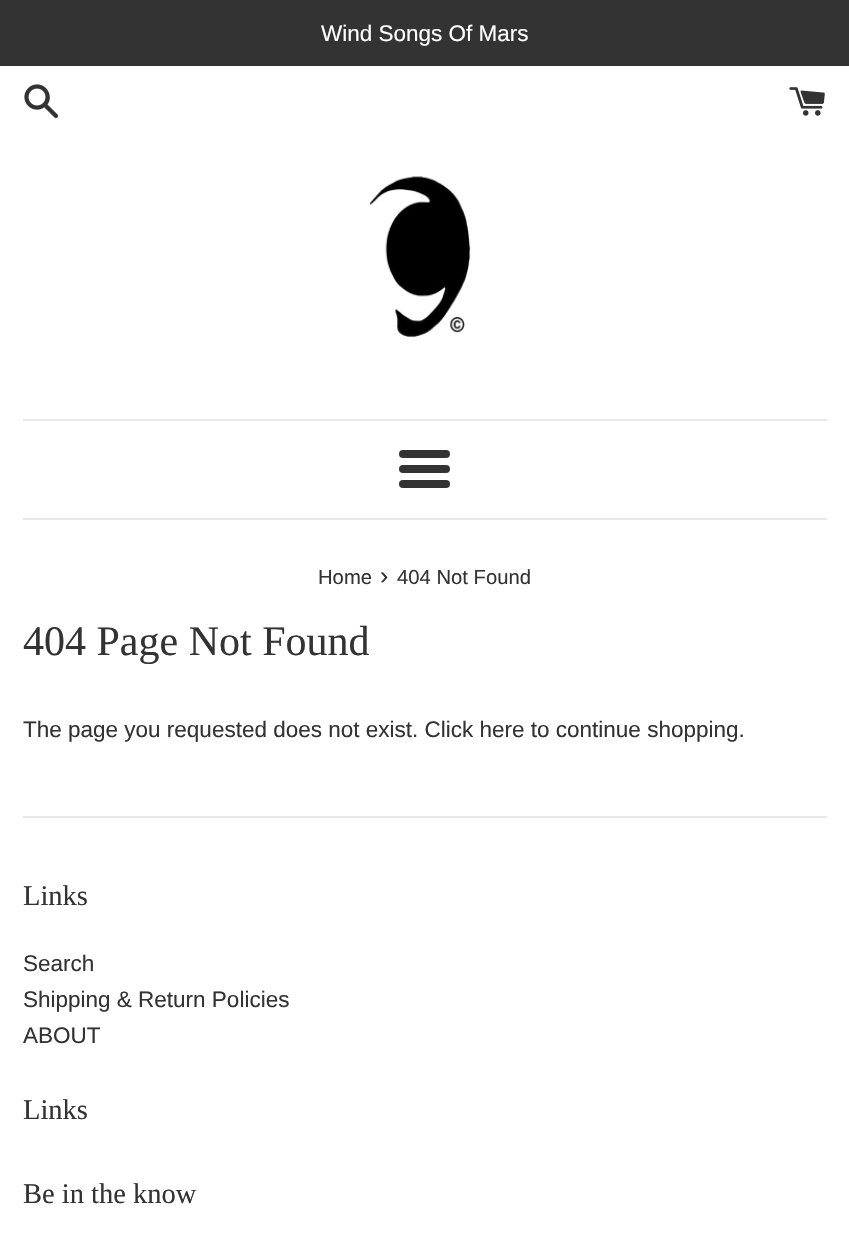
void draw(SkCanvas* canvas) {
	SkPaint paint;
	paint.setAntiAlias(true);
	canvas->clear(0xffffffff);
	paint.setColor(0xff333333);
	canvas->drawRect(SkRect::MakeXYWH(0, 0, 849, 66), paint);
	SkFont f1(fontMgr->matchFamilyStyle("Liberation Sans", SkFontStyle::Normal()), 22.5);
	f1.setSubpixel(true);
	paint.setColor(0xffffffff);
	canvas->drawString("Wind Songs Of Mars", 321, 41, f1, paint);
	canvas->drawImageRect(SkImages::DeferredFromEncodedData(SkData::MakeFromFileName("img1.png")), SkRect::MakeXYWH(24, 84, 34, 34), SkSamplingOptions());
	canvas->drawImageRect(SkImages::DeferredFromEncodedData(SkData::MakeFromFileName("img2.png")), SkRect::MakeXYWH(789, 87, 36, 29), SkSamplingOptions());
	canvas->drawImageRect(SkImages::DeferredFromEncodedData(SkData::MakeFromFileName("img3.png")), SkRect::MakeXYWH(369, 176, 102, 161), SkSamplingOptions());
	paint.setColor(0xffe8e8e8);
	canvas->drawRect(SkRect::MakeXYWH(23, 419, 804, 2), paint);
	paint.setColor(0xff333333);
	canvas->drawRoundRect(SkRect::MakeXYWH(399, 450, 51, 8), 4, 4, paint);
	canvas->drawRoundRect(SkRect::MakeXYWH(399, 465, 51, 8), 4, 4, paint);
	canvas->drawRoundRect(SkRect::MakeXYWH(399, 480, 51, 8), 4, 4, paint);
	paint.setColor(0xffe8e8e8);
	canvas->drawRect(SkRect::MakeXYWH(23, 518, 804, 2), paint);
	SkFont f2(fontMgr->matchFamilyStyle("Liberation Sans", SkFontStyle::Normal()), 20.25);
	f2.setSubpixel(true);
	paint.setColor(0xff333333);
	canvas->drawString("Home", 318, 584, f2, paint);
	SkFont f3(fontMgr->matchFamilyStyle("Liberation Sans", SkFontStyle::Normal()), 25);
	f3.setSubpixel(true);
	canvas->drawString("›", 380, 584, f3, paint);
	canvas->drawString("404 Not Found", 397, 584, f2, paint);
	SkFont f4(fontMgr->matchFamilyStyle("Liberation Serif", SkFontStyle::Normal()), 42);
	f4.setSubpixel(true);
	canvas->drawString("404 Page Not Found", 23, 655, f4, paint);
	canvas->drawString("The page you requested does not exist. Click here to continue shopping.", 23, 737, f1, paint);
	paint.setColor(0xffe8e8e8);
	canvas->drawRect(SkRect::MakeXYWH(23, 816, 804, 2), paint);
	SkFont f5(fontMgr->matchFamilyStyle("Liberation Serif", SkFontStyle::Normal()), 28.5);
	f5.setSubpixel(true);
	paint.setColor(0xff333333);
	canvas->drawString("Links", 23, 905, f5, paint);
	canvas->drawString("Search", 23, 971, f1, paint);
	canvas->drawString("Shipping & Return Policies", 23, 1007, f1, paint);
	canvas->drawString("ABOUT", 23, 1043, f1, paint);
	canvas->drawString("Links", 23, 1119, f5, paint);
	canvas->drawString("Be in the know", 23, 1203, f5, paint);
}
